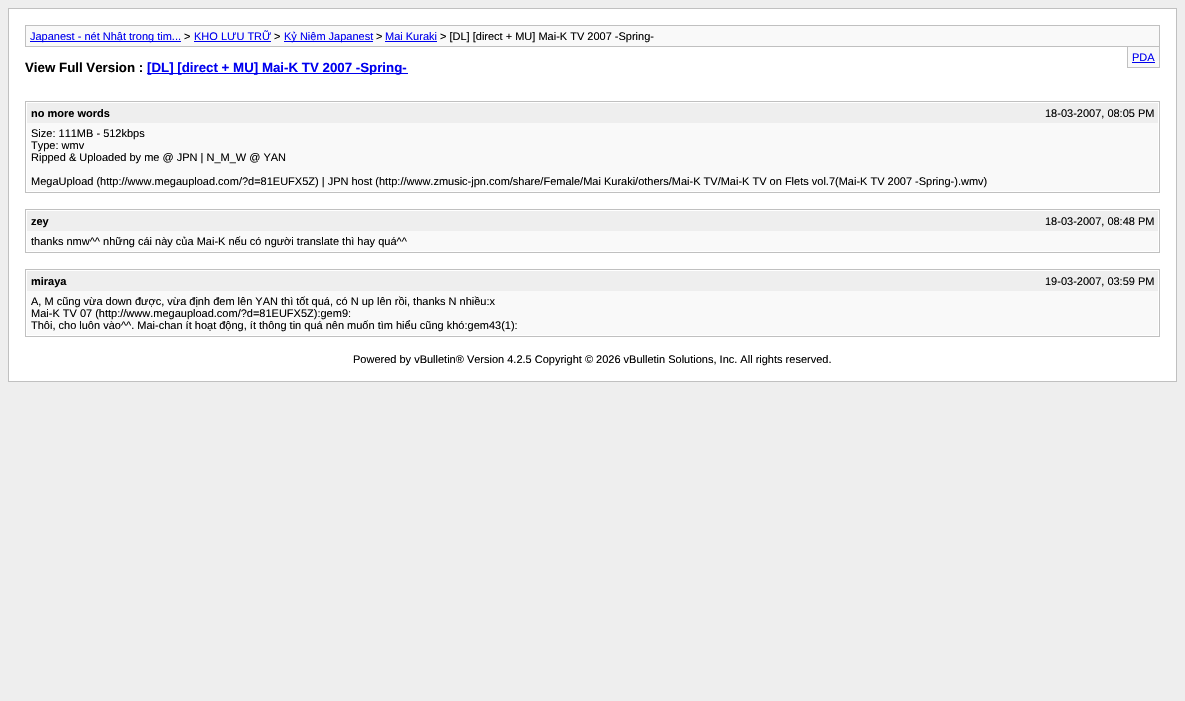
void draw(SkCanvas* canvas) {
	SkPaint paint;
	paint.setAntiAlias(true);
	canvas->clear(0xffeeeeee);
	paint.setColor(0xffffffff);
	canvas->drawRect(SkRect::MakeXYWH(8.5, 8.5, 1168, 373), paint);
	paint.setStroke(true);
	paint.setStrokeWidth(1);
	paint.setColor(0xffc0c0c0);
	canvas->drawRect(SkRect::MakeXYWH(8.5, 8.5, 1168, 373), paint);
	paint.setStroke(false);
	paint.setColor(0xfff9f9f9);
	canvas->drawRect(SkRect::MakeXYWH(25.5, 25.5, 1134, 21), paint);
	paint.setStroke(true);
	paint.setColor(0xffc0c0c0);
	canvas->drawRect(SkRect::MakeXYWH(25.5, 25.5, 1134, 21), paint);
	paint.setStroke(false);
	paint.setColor(0xff0000ee);
	canvas->drawRect(SkRect::MakeXYWH(30, 41, 151, 1), paint);
	SkFont f1(fontMgr->matchFamilyStyle("Liberation Sans", SkFontStyle::Normal()), 11);
	f1.setSubpixel(true);
	canvas->drawString("Japanest - nét Nhật trong tim...", 30, 40, f1, paint);
	paint.setColor(0xff000000);
	canvas->drawString(">", 184, 40, f1, paint);
	paint.setColor(0xff0000ee);
	canvas->drawString("KHO LƯU TRỮ", 194, 40, f1, paint);
	canvas->drawRect(SkRect::MakeXYWH(194, 41, 77, 1), paint);
	paint.setColor(0xff000000);
	canvas->drawString(">", 274, 40, f1, paint);
	paint.setColor(0xff0000ee);
	canvas->drawRect(SkRect::MakeXYWH(284, 41, 89, 1), paint);
	canvas->drawString("Kỷ Niệm Japanest", 284, 40, f1, paint);
	paint.setColor(0xff000000);
	canvas->drawString(">", 376, 40, f1, paint);
	paint.setColor(0xff0000ee);
	canvas->drawString("Mai Kuraki", 385, 40, f1, paint);
	canvas->drawRect(SkRect::MakeXYWH(385, 41, 52, 1), paint);
	paint.setColor(0xff000000);
	canvas->drawString("> [DL] [direct + MU] Mai-K TV 2007 -Spring-", 440, 40, f1, paint);
	paint.setColor(0xfff9f9f9);
	canvas->drawRect(SkRect::MakeXYWH(1128, 47, 31, 20), paint);
	paint.setColor(0xffc0c0c0);
	canvas->drawRect(SkRect::MakeXYWH(1159, 47, 1, 21), paint);
	canvas->drawRect(SkRect::MakeXYWH(1127, 67, 33, 1), paint);
	canvas->drawRect(SkRect::MakeXYWH(1127, 47, 1, 21), paint);
	paint.setColor(0xff0000ee);
	canvas->drawString("PDA", 1132, 61, f1, paint);
	canvas->drawRect(SkRect::MakeXYWH(1132, 62, 23, 1), paint);
	SkFont f2(fontMgr->matchFamilyStyle("Liberation Sans", SkFontStyle::Bold()), 13.3);
	f2.setSubpixel(true);
	paint.setColor(0xff000000);
	canvas->drawString("View Full Version :", 25, 72, f2, paint);
	paint.setColor(0xff0000ee);
	canvas->drawRect(SkRect::MakeXYWH(147, 73, 261, 1), paint);
	canvas->drawString("[DL] [direct + MU] Mai-K TV 2007 -Spring-", 147, 72, f2, paint);
	paint.setStroke(true);
	paint.setColor(0xffc0c0c0);
	canvas->drawRect(SkRect::MakeXYWH(25.5, 101.5, 1134, 91), paint);
	paint.setStroke(false);
	paint.setColor(0xffeeeeee);
	canvas->drawRect(SkRect::MakeXYWH(27, 103, 1131, 20), paint);
	SkFont f3(fontMgr->matchFamilyStyle("Liberation Sans", SkFontStyle::Bold()), 11);
	f3.setSubpixel(true);
	paint.setColor(0xff000000);
	canvas->drawString("no more words", 31, 117, f3, paint);
	canvas->drawString("18-03-2007, 08:05 PM", 1045, 117, f1, paint);
	paint.setColor(0xfff9f9f9);
	canvas->drawRect(SkRect::MakeXYWH(27, 123, 1131, 68), paint);
	paint.setColor(0xff000000);
	canvas->drawString("Size: 111MB - 512kbps", 31, 137, f1, paint);
	canvas->drawString("Type: wmv", 31, 149, f1, paint);
	canvas->drawString("Ripped & Uploaded by me @ JPN | N_M_W @ YAN", 31, 161, f1, paint);
	canvas->drawString("MegaUpload (http://www.megaupload.com/?d=81EUFX5Z) | JPN host (http://www.zmusic-jpn.com/share/Female/Mai Kuraki/others/Mai-K TV/Mai-K TV on Flets vol.7(Mai-K TV 2007 -Spring-).wmv)", 31, 185, f1, paint);
	paint.setStroke(true);
	paint.setColor(0xffc0c0c0);
	canvas->drawRect(SkRect::MakeXYWH(25.5, 209.5, 1134, 43), paint);
	paint.setStroke(false);
	paint.setColor(0xffeeeeee);
	canvas->drawRect(SkRect::MakeXYWH(27, 211, 1131, 20), paint);
	paint.setColor(0xff000000);
	canvas->drawString("zey", 31, 225, f3, paint);
	canvas->drawString("18-03-2007, 08:48 PM", 1045, 225, f1, paint);
	paint.setColor(0xfff9f9f9);
	canvas->drawRect(SkRect::MakeXYWH(27, 231, 1131, 20), paint);
	paint.setColor(0xff000000);
	canvas->drawString("thanks nmw^^ những cái này của Mai-K nếu có người translate thì hay quá^^", 31, 245, f1, paint);
	paint.setStroke(true);
	paint.setColor(0xffc0c0c0);
	canvas->drawRect(SkRect::MakeXYWH(25.5, 269.5, 1134, 67), paint);
	paint.setStroke(false);
	paint.setColor(0xffeeeeee);
	canvas->drawRect(SkRect::MakeXYWH(27, 271, 1131, 20), paint);
	paint.setColor(0xff000000);
	canvas->drawString("miraya", 31, 285, f3, paint);
	canvas->drawString("19-03-2007, 03:59 PM", 1045, 285, f1, paint);
	paint.setColor(0xfff9f9f9);
	canvas->drawRect(SkRect::MakeXYWH(27, 291, 1131, 44), paint);
	paint.setColor(0xff000000);
	canvas->drawString("A, M cũng vừa down được, vừa định đem lên YAN thì tốt quá, có N up lên rồi, thanks N nhiều:x", 31, 305, f1, paint);
	canvas->drawString("Mai-K TV 07 (http://www.megaupload.com/?d=81EUFX5Z):gem9:", 31, 317, f1, paint);
	canvas->drawString("Thôi, cho luôn vào^^. Mai-chan ít hoạt động, ít thông tin quá nên muốn tìm hiểu cũng khó:gem43(1):", 31, 329, f1, paint);
	canvas->drawString("Powered by vBulletin® Version 4.2.5 Copyright © 2026 vBulletin Solutions, Inc. All rights reserved.", 353, 363, f1, paint);
}
